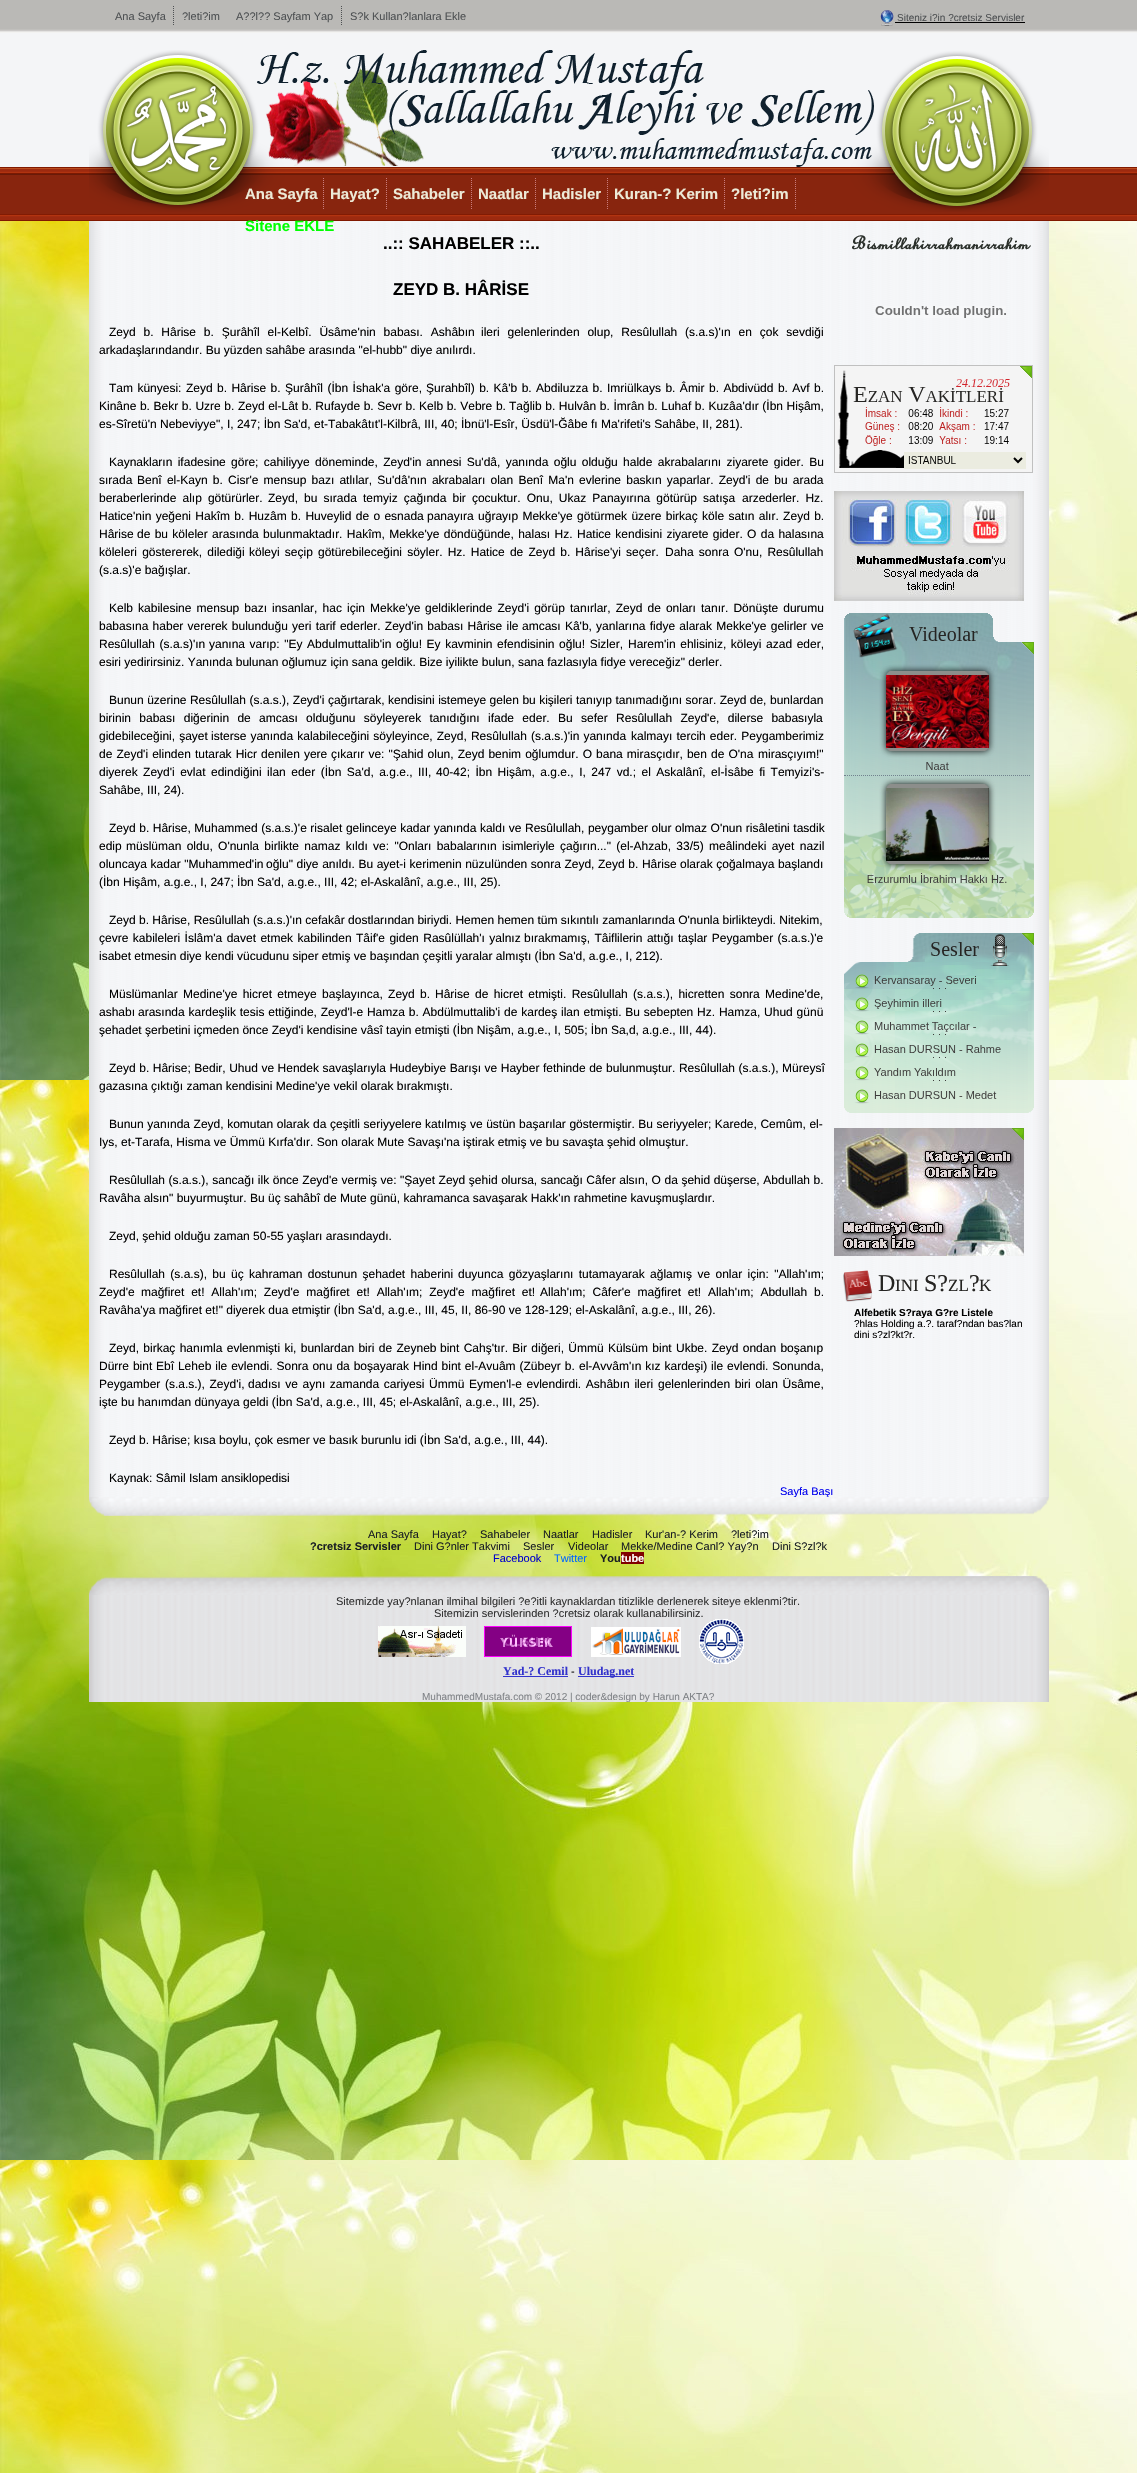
void draw(SkCanvas* canvas) {
	SkPaint paint;
	paint.setAntiAlias(true);
	auto spacedText = [&](const char* s, float x, float y, const SkFont& font, const SkPaint& ink, float letter, float word) {
		std::vector<SkGlyphID> glyphs(font.countText(s, strlen(s), SkTextEncoding::kUTF8));
		std::vector<float> xs(glyphs.size());
		font.textToGlyphs(s, strlen(s), SkTextEncoding::kUTF8, glyphs);
		font.getXPos(glyphs, xs, x);
		float extra = 0;
		for (size_t i = 0; i < glyphs.size(); i++) {
			xs[i] += extra;
			extra += letter + word * (glyphs[i] == font.unicharToGlyph(' '));
		}
		canvas->drawTextBlob(SkTextBlob::MakeFromPosHGlyphs(glyphs, xs, y, font), 0, 0, ink);
	};
	auto svgPath = [&](const char* data, bool evenOdd = false) {
		SkPath result = *SkParsePath::FromSVGString(data);
		if (evenOdd) result.setFillType(SkPathFillType::kEvenOdd);
		return result;
	};
	canvas->clear(0xffffffff);
	canvas->drawImageRect(SkImages::DeferredFromEncodedData(SkData::MakeFromFileName("img1.png")), SkRect::MakeXYWH(0, 221, 1137, 2252), SkSamplingOptions());
	canvas->drawImageRect(SkImages::DeferredFromEncodedData(SkData::MakeFromFileName("img2.png")), SkRect::MakeXYWH(0, 0, 1137, 33), SkSamplingOptions());
	paint.setStroke(true);
	paint.setStrokeWidth(1);
	paint.setColor(0xff4e5153);
	paint.setPathEffect(SkDashPathEffect::Make({{1, 1}}, 0));
	canvas->drawPath(svgPath("M173.5 6V26"), paint);
	paint.setPathEffect(nullptr);
	SkFont f1(fontMgr->matchFamilyStyle("Liberation Sans", SkFontStyle::Normal()), 11);
	f1.setSubpixel(true);
	paint.setStroke(false);
	canvas->drawString("Ana Sayfa", 115, 20, f1, paint);
	canvas->drawString("?leti?im", 182, 20, f1, paint);
	paint.setStroke(true);
	paint.setPathEffect(SkDashPathEffect::Make({{1, 1}}, 0));
	canvas->drawPath(svgPath("M341.5 6V26"), paint);
	paint.setPathEffect(nullptr);
	paint.setStroke(false);
	canvas->drawString("A?\077l?\077 Sayfam Yap", 236, 20, f1, paint);
	canvas->drawString("S?k Kullan?lanlara Ekle", 350, 20, f1, paint);
	canvas->drawImageRect(SkImages::DeferredFromEncodedData(SkData::MakeFromFileName("img3.png")), SkRect::MakeXYWH(880, 10, 14, 16), SkSamplingOptions());
	SkFont f2(fontMgr->matchFamilyStyle("Liberation Sans", SkFontStyle::Normal()), 10);
	f2.setSubpixel(true);
	canvas->drawString("Siteniz i?in ?cretsiz Servisler", 897, 21, f2, paint);
	paint.setColor(0xff000000);
	canvas->drawRect(SkRect::MakeXYWH(895, 22, 130, 1), paint);
	paint.setColor(0xfff4f5f7);
	canvas->drawRect(SkRect::MakeXYWH(0, 33, 1137, 134), paint);
	canvas->drawImageRect(SkImages::DeferredFromEncodedData(SkData::MakeFromFileName("img4.png")), SkRect::MakeXYWH(0, 167, 1137, 54), SkSamplingOptions());
	canvas->drawImageRect(SkImages::DeferredFromEncodedData(SkData::MakeFromFileName("img5.png")), SkRect::MakeXYWH(89, 50, 960, 162), SkSamplingOptions());
	paint.setStroke(true);
	paint.setColor(0xffca7c7c);
	paint.setPathEffect(SkDashPathEffect::Make({{1, 1}}, 0));
	canvas->drawPath(svgPath("M323.5 178V210"), paint);
	paint.setPathEffect(nullptr);
	SkFont f3(fontMgr->matchFamilyStyle("Liberation Sans", SkFontStyle::Bold()), 15);
	f3.setSubpixel(true);
	paint.setStroke(false);
	paint.setColor(0xffedead7);
	canvas->drawString("Ana Sayfa", 245, 199, f3, paint);
	paint.setStroke(true);
	paint.setColor(0xffca7c7c);
	paint.setPathEffect(SkDashPathEffect::Make({{1, 1}}, 0));
	canvas->drawPath(svgPath("M386.5 178V210"), paint);
	paint.setPathEffect(nullptr);
	paint.setStroke(false);
	paint.setColor(0xffedead7);
	canvas->drawString("Hayat?", 330, 199, f3, paint);
	paint.setStroke(true);
	paint.setColor(0xffca7c7c);
	paint.setPathEffect(SkDashPathEffect::Make({{1, 1}}, 0));
	canvas->drawPath(svgPath("M471.5 178V210"), paint);
	paint.setPathEffect(nullptr);
	paint.setStroke(false);
	paint.setColor(0xffedead7);
	canvas->drawString("Sahabeler", 393, 199, f3, paint);
	paint.setStroke(true);
	paint.setColor(0xffca7c7c);
	paint.setPathEffect(SkDashPathEffect::Make({{1, 1}}, 0));
	canvas->drawPath(svgPath("M535.5 178V210"), paint);
	paint.setPathEffect(nullptr);
	paint.setStroke(false);
	paint.setColor(0xffedead7);
	canvas->drawString("Naatlar", 478, 199, f3, paint);
	paint.setStroke(true);
	paint.setColor(0xffca7c7c);
	paint.setPathEffect(SkDashPathEffect::Make({{1, 1}}, 0));
	canvas->drawPath(svgPath("M607.5 178V210"), paint);
	paint.setPathEffect(nullptr);
	paint.setStroke(false);
	paint.setColor(0xffedead7);
	canvas->drawString("Hadisler", 542, 199, f3, paint);
	paint.setStroke(true);
	paint.setColor(0xffca7c7c);
	paint.setPathEffect(SkDashPathEffect::Make({{1, 1}}, 0));
	canvas->drawPath(svgPath("M724.5 178V210"), paint);
	paint.setPathEffect(nullptr);
	paint.setStroke(false);
	paint.setColor(0xffedead7);
	canvas->drawString("Kuran-? Kerim", 614, 199, f3, paint);
	paint.setStroke(true);
	paint.setColor(0xffca7c7c);
	paint.setPathEffect(SkDashPathEffect::Make({{1, 1}}, 0));
	canvas->drawPath(svgPath("M795.5 178V210"), paint);
	paint.setPathEffect(nullptr);
	paint.setStroke(false);
	paint.setColor(0xffedead7);
	canvas->drawString("?leti?im", 731, 199, f3, paint);
	canvas->drawImageRect(SkImages::DeferredFromEncodedData(SkData::MakeFromFileName("img6.png")), SkRect::MakeXYWH(89, 221, 960, 1276), SkSamplingOptions());
	paint.setColor(0xff00ff00);
	canvas->drawString("Sitene EKLE", 245, 231, f3, paint);
	SkFont f4(fontMgr->matchFamilyStyle("Liberation Sans", SkFontStyle::Bold()), 17);
	f4.setSubpixel(true);
	paint.setColor(0xff000000);
	canvas->drawString("..:: SAHABELER ::..", 383, 249, f4, paint);
	canvas->drawString("ZEYD B. HÂRİSE", 393, 295, f4, paint);
	SkFont f5(fontMgr->matchFamilyStyle("Liberation Sans", SkFontStyle::Normal()), 12);
	f5.setSubpixel(true);
	spacedText("Zeyd b. Hârise b. Şurâhîl el-Kelbî. Üsâme'nin babası. Ashâbın", 109, 336, f5, paint, 0, 4.5);
	spacedText("ileri gelenlerinden olup, Resûlullah (s.a.s)'ın en çok sevdiği", 481, 336, f5, paint, 0, 4.5);
	canvas->drawString("arkadaşlarındandır. Bu yüzden sahâbe arasında \"el-hubb\" diye anılırdı.", 99, 354, f5, paint);
	spacedText("Tam künyesi: Zeyd b. Hârise b. Şurâhîl (İbn İshak'a göre,", 109, 392, f5, paint, 0, 1.1);
	spacedText("Şurahbîl) b. Kâ'b b. Abdiluzza b. Imriülkays b. Âmir b. Abdivüdd b. Avf b.", 426, 392, f5, paint, 0, 1.1);
	spacedText("Kinâne b. Bekr b. Uzre b. Zeyd el-Lât b. Rufayde b. Sevr b. Kelb b. Vebre b.", 99, 410, f5, paint, 0, 0.25);
	spacedText("Tağlib b. Hulvân b. İmrân b. Luhaf b. Kuzâa'dır (İbn Hişâm,", 509, 410, f5, paint, 0, 0.25);
	canvas->drawString("es-Sîretü'n Nebeviyye\", I, 247; İbn Sa'd, et-Tabakâtıt'l-Kilbrâ, III, 40; İbnü'l-Esîr, Üsdü'l-Ğâbe fı Ma'rifeti's Sahâbe, II, 281).", 99, 428, f5, paint);
	spacedText("Kaynakların ifadesine göre; cahiliyye döneminde, Zeyd'in", 109, 466, f5, paint, 0, 2);
	spacedText("annesi Su'dâ, yanında oğlu olduğu halde akrabalarını ziyarete gider. Bu", 426, 466, f5, paint, 0, 2);
	canvas->drawString("sırada", 99, 484, f5, paint);
	spacedText("Benî el-Kayn b. Cisr'e mensup bazı atlılar, Su'dâ'nın akrabaları olan Benî Ma'n", 137, 484, f5, paint, 0, 1.9);
	spacedText("evlerine baskın yaparlar. Zeyd'i de bu arada", 579, 484, f5, paint, 0, 1.9);
	spacedText("beraberlerinde alıp götürürler.", 99, 502, f5, paint, 0, 2.75);
	spacedText("Zeyd, bu sırada temyiz çağında bir çocuktur. Onu, Ukaz Panayırına götürüp satışa", 268, 502, f5, paint, 0, 2.75);
	spacedText("arzederler. Hz.", 742, 502, f5, paint, 0, 2.75);
	spacedText("Hatice'nin yeğeni Hakîm b. Huzâm b. Huveylid de o esnada", 99, 520, f5, paint, 0, 1);
	spacedText("panayıra uğrayıp Mekke'ye götürmek üzere birkaç köle satın alır. Zeyd b.", 427, 520, f5, paint, 0, 1);
	canvas->drawString("Hârise", 99, 538, f5, paint);
	spacedText("de bu köleler arasında bulunmaktadır. Hakîm, Mekke'ye döndüğünde, halası Hz.", 137, 538, f5, paint, 0, 1);
	spacedText("Hatice kendisini ziyarete gider. O da halasına", 577, 538, f5, paint, 0, 1);
	spacedText("köleleri göstererek, dilediği", 99, 556, f5, paint, 0, 1.8);
	spacedText("köleyi seçip götürebileceğini söyler. Hz. Hatice de Zeyd b. Hârise'yi seçer.", 249, 556, f5, paint, 0, 1.8);
	spacedText("Daha sonra O'nu, Resûlullah", 665, 556, f5, paint, 0, 1.8);
	canvas->drawString("(s.a.s)'e bağışlar.", 99, 574, f5, paint);
	spacedText("Kelb kabilesine mensup bazı insanlar, hac için Mekke'ye", 109, 612, f5, paint, 0, 1.75);
	spacedText("geldiklerinde Zeyd'i görüp tanırlar, Zeyd de onları tanır. Dönüşte durumu", 425, 612, f5, paint, 0, 1.75);
	spacedText("babasına haber vererek bulunduğu yeri tarif ederler. Zeyd'in babası Hârise ile", 99, 630, f5, paint, 0, 0.9);
	spacedText("amcası Kâ'b, yanlarına fidye alarak Mekke'ye gelirler ve", 522, 630, f5, paint, 0, 0.9);
	spacedText("Resûlullah (s.a.s)'ın", 99, 648, f5, paint, 0, 1.25);
	spacedText("yanına varıp: \"Ey Abdulmuttalib'in oğlu! Ey kavminin efendisinin oğlu! Sizler,", 209, 648, f5, paint, 0, 1.25);
	spacedText("Harem'in ehlisiniz, köleyi azad eder,", 628, 648, f5, paint, 0, 1.25);
	canvas->drawString("esiri yedirirsiniz. Yanında bulunan oğlumuz için sana geldik. Bize iyilikte bulun, sana fazlasıyla fidye vereceğiz\" derler.", 99, 666, f5, paint);
	spacedText("Bunun üzerine Resûlullah (s.a.s.), Zeyd'i çağırtarak, kendisini istemeye gelen bu kişileri tanıyıp tanımadığını sorar. Zeyd de,", 109, 704, f5, paint, 0, 0.1);
	canvas->drawString("bunlardan", 770, 704, f5, paint);
	spacedText("birinin babası diğerinin de amcası olduğunu söyleyerek tanıdığını", 99, 722, f5, paint, 0, 5);
	spacedText("ifade eder. Bu sefer Resûlullah Zeyd'e, dilerse babasıyla", 488, 722, f5, paint, 0, 5);
	spacedText("gidebileceğini, şayet", 99, 740, f5, paint, 0, 0.75);
	spacedText("isterse yanında kalabileceğini söyleyince, Zeyd, Resûlullah (s.a.s.)'in yanında", 211, 740, f5, paint, 0, 0.75);
	spacedText("kalmayı tercih eder. Peygamberimiz", 631, 740, f5, paint, 0, 0.75);
	spacedText("de Zeyd'i elinden tutarak Hicr denilen yere", 99, 758, f5, paint, 0, 0.75);
	spacedText("çıkarır ve: \"Şahid olun, Zeyd benim oğlumdur. O bana mirasçıdır, ben de O'na", 331, 758, f5, paint, 0, 0.75);
	canvas->drawString("mirasçıyım!\"", 758, 758, f5, paint);
	spacedText("diyerek Zeyd'i evlat edindiğini ilan eder (İbn Sa'd, a.g.e., III,", 99, 776, f5, paint, 0, 2.1);
	spacedText("40-42; İbn Hişâm, a.g.e., I, 247 vd.; el Askalânî, el-İsâbe fi Temyizi's-", 436, 776, f5, paint, 0, 2.1);
	canvas->drawString("Sahâbe, III, 24).", 99, 794, f5, paint);
	spacedText("Zeyd b. Hârise, Muhammed (s.a.s.)'e risalet gelinceye kadar yanında kaldı ve Resûlullah, peygamber olur olmaz O'nun risâletini tasdik", 109, 832, f5, paint, 0, 0.2);
	canvas->drawString("edip", 99, 850, f5, paint);
	spacedText("müslüman oldu, O'nunla birlikte namaz kıldı ve: \"Onları babalarının isimleriyle", 126, 850, f5, paint, 0, 2);
	spacedText("çağırın...\" (el-Ahzab, 33/5) meâlindeki ayet nazil", 560, 850, f5, paint, 0, 2);
	spacedText("oluncaya kadar \"Muhammed'in", 99, 868, f5, paint, 0, 0.25);
	spacedText("oğlu\" diye anıldı. Bu ayet-i kerimenin nüzulünden sonra Zeyd, Zeyd b. Hârise", 266, 868, f5, paint, 0, 0.25);
	spacedText("olarak çoğalmaya başlandı", 680, 868, f5, paint, 0, 0.25);
	canvas->drawString("(İbn Hişâm, a.g.e., I, 247; İbn Sa'd, a.g.e., III, 42; el-Askalânî, a.g.e., III, 25).", 99, 886, f5, paint);
	canvas->drawString("Zeyd b. Hârise, Resûlullah (s.a.s.)'ın cefakâr dostlarından biriydi. Hemen hemen tüm sıkıntılı zamanlarında O'nunla birlikteydi. Nitekim,", 109, 924, f5, paint);
	spacedText("çevre kabileleri İslâm'a davet etmek kabilinden Tâif'e giden Rasûlüllah'ı yalnız", 99, 942, f5, paint, 0, 1.1);
	spacedText("bırakmamış, Tâiflilerin attığı taşlar Peygamber (s.a.s.)'e", 524, 942, f5, paint, 0, 1.1);
	canvas->drawString("isabet etmesin diye kendi vücudunu siper etmiş ve başından çeşitli yaralar almıştı (İbn Sa'd, a.g.e., I, 212).", 99, 960, f5, paint);
	spacedText("Müslümanlar Medine'ye hicret etmeye başlayınca, Zeyd b.", 109, 998, f5, paint, 0, 2);
	spacedText("Hârise de hicret etmişti. Resûlullah (s.a.s.), hicretten sonra Medine'de,", 435, 998, f5, paint, 0, 2);
	canvas->drawString("ashabı", 99, 1016, f5, paint);
	spacedText("arasında kardeşlik tesis ettiğinde, Zeyd'l-e Hamza b. Abdülmuttalib'i de kardeş", 138, 1016, f5, paint, 0, 0.5);
	spacedText("ilan etmişti. Bu sebepten Hz. Hamza, Uhud günü", 561, 1016, f5, paint, 0, 0.5);
	canvas->drawString("şehadet şerbetini içmeden önce Zeyd'i kendisine vâsî tayin etmişti (İbn Nişâm, a.g.e., I, 505; İbn Sa,d, a.g.e., III, 44).", 99, 1034, f5, paint);
	spacedText("Zeyd b. Hârise; Bedir, Uhud ve Hendek savaşlarıyla Hudeybiye Barışı ve Hayber fethinde de bulunmuştur. Resûlullah (s.a.s.), Müreysî", 109, 1072, f5, paint, 0, 0.2);
	canvas->drawString("gazasına çıktığı zaman kendisini Medine'ye vekil olarak bırakmıştı.", 99, 1090, f5, paint);
	spacedText("Bunun yanında Zeyd, komutan olarak da çeşitli seriyyelere", 109, 1128, f5, paint, 0, 0.25);
	spacedText("katılmış ve üstün başarılar göstermiştir. Bu seriyyeler; Karede, Cemûm, el-", 425, 1128, f5, paint, 0, 0.25);
	canvas->drawString("Iys, et-Tarafa, Hisma ve Ümmü Kırfa'dır. Son olarak Mute Savaşı'na iştirak etmiş ve bu savaşta şehid olmuştur.", 99, 1146, f5, paint);
	spacedText("Resûlullah (s.a.s.), sancağı ilk önce Zeyd'e vermiş ve: \"Şayet Zeyd şehid olursa, sancağı Câfer alsın, O da şehid düşerse, Abdullah b.", 109, 1184, f5, paint, 0, 0.25);
	canvas->drawString("Ravâha alsın\" buyurmuştur. Bu üç sahâbî de Mute günü, kahramanca savaşarak Hakk'ın rahmetine kavuşmuşlardır.", 99, 1202, f5, paint);
	canvas->drawString("Zeyd, şehid olduğu zaman 50-55 yaşları arasındaydı.", 109, 1240, f5, paint);
	spacedText("Resûlullah (s.a.s), bu üç kahraman dostunun şehadet haberini", 109, 1278, f5, paint, 0, 2);
	spacedText("duyunca gözyaşlarını tutamayarak ağlamış ve onlar için: \"Allah'ım;", 458, 1278, f5, paint, 0, 2);
	canvas->drawString("Zeyd'e", 99, 1296, f5, paint);
	spacedText("mağfiret et! Allah'ım; Zeyd'e mağfiret et! Allah'ım; Zeyd'e mağfiret et!", 141, 1296, f5, paint, 0, 3.5);
	spacedText("Allah'ım; Câfer'e mağfiret et! Allah'ım; Abdullah b.", 540, 1296, f5, paint, 0, 3.5);
	canvas->drawString("Ravâha'ya mağfiret et!\" diyerek dua etmiştir (İbn Sa'd, a.g.e., III, 45, II, 86-90 ve 128-129; el-Askalânî, a.g.e., III, 26).", 99, 1314, f5, paint);
	spacedText("Zeyd, birkaç hanımla evlenmişti ki, bunlardan biri de Zeyneb", 109, 1352, f5, paint, 0, 1);
	spacedText("bint Cahş'tır. Bir diğeri, Ümmü Külsüm bint Ukbe. Zeyd ondan boşanıp", 440, 1352, f5, paint, 0, 1);
	spacedText("Dürre bint", 99, 1370, f5, paint, 0, 0.6);
	spacedText("Ebî Leheb ile evlendi. Sonra onu da boşayarak Hind bint el-Avuâm (Zübeyr b.", 156, 1370, f5, paint, 0, 0.6);
	spacedText("el-Avvâm'ın kız kardeşi) ile evlendi. Sonunda,", 579, 1370, f5, paint, 0, 0.6);
	spacedText("Peygamber (s.a.s.), Zeyd'i,", 99, 1388, f5, paint, 0, 1.25);
	spacedText("dadısı ve aynı zamanda cariyesi Ümmü Eymen'l-e evlendirdi. Ashâbın ileri", 248, 1388, f5, paint, 0, 1.25);
	spacedText("gelenlerinden biri olan Üsâme,", 658, 1388, f5, paint, 0, 1.25);
	canvas->drawString("işte bu hanımdan dünyaya geldi (İbn Sa'd, a.g.e., III, 45; el-Askalânî, a.g.e., III, 25).", 99, 1406, f5, paint);
	canvas->drawString("Zeyd b. Hârise; kısa boylu, çok esmer ve basık burunlu idi (İbn Sa'd, a.g.e., III, 44).", 109, 1444, f5, paint);
	canvas->drawString("Kaynak: Sâmil Islam ansiklopedisi", 109, 1482, f5, paint);
	canvas->save();
	canvas->clipRect(SkRect::MakeXYWH(89, 221, 745, 1276));
	paint.setColor(0xff0000ee);
	canvas->drawString("Sayfa Başı", 780, 1495, f1, paint);
	canvas->restore();
	canvas->drawImageRect(SkImages::DeferredFromEncodedData(SkData::MakeFromFileName("img7.png")), SkRect::MakeXYWH(852, 235, 179, 15), SkSamplingOptions());
	canvas->drawImageRect(SkImages::DeferredFromEncodedData(SkData::MakeFromFileName("img8.png")), SkRect::MakeXYWH(875, 306, 131, 12), SkSamplingOptions());
	canvas->drawImageRect(SkImages::DeferredFromEncodedData(SkData::MakeFromFileName("img9.png")), SkRect::MakeXYWH(834, 365, 199, 108), SkSamplingOptions());
	canvas->drawImageRect(SkImages::DeferredFromEncodedData(SkData::MakeFromFileName("img10.png")), SkRect::MakeXYWH(834, 491, 190, 110), SkSamplingOptions());
	canvas->drawImageRect(SkImages::DeferredFromEncodedData(SkData::MakeFromFileName("img11.png")), SkRect::MakeXYWH(844, 613, 190, 305), SkSamplingOptions());
	canvas->drawImageRect(SkImages::DeferredFromEncodedData(SkData::MakeFromFileName("img12.png")), SkRect::MakeXYWH(844, 933, 190, 180), SkSamplingOptions());
	canvas->drawImageRect(SkImages::DeferredFromEncodedData(SkData::MakeFromFileName("img13.png")), SkRect::MakeXYWH(834, 1128, 190, 128), SkSamplingOptions());
	canvas->drawImageRect(SkImages::DeferredFromEncodedData(SkData::MakeFromFileName("img14.png")), SkRect::MakeXYWH(843, 1270, 29, 32), SkSamplingOptions());
	SkFont f6(fontMgr->matchFamilyStyle("Liberation Serif", SkFontStyle::Normal()), 24);
	f6.setSubpixel(true);
	paint.setColor(0xff252422);
	canvas->drawString("D", 878, 1291, f6, paint);
	SkFont f7(fontMgr->matchFamilyStyle("Liberation Serif", SkFontStyle::Normal()), 17);
	f7.setSubpixel(true);
	canvas->drawString("INI", 895, 1291, f7, paint);
	canvas->drawString("S?", 924, 1291, f6, paint);
	canvas->drawString("ZL", 948, 1291, f7, paint);
	canvas->drawString("?", 969, 1291, f6, paint);
	canvas->drawString("K", 979, 1291, f7, paint);
	SkFont f8(fontMgr->matchFamilyStyle("Liberation Sans", SkFontStyle::Bold()), 10);
	f8.setSubpixel(true);
	paint.setColor(0xff000000);
	canvas->drawString("Alfebetik S?raya G?re Listele", 854, 1316, f8, paint);
	canvas->drawString("?hlas Holding a.?. taraf?ndan bas?lan", 854, 1327, f2, paint);
	canvas->drawString("dini s?zl?kt?r.", 854, 1338, f2, paint);
	canvas->drawImageRect(SkImages::DeferredFromEncodedData(SkData::MakeFromFileName("img15.png")), SkRect::MakeXYWH(89, 1497, 960, 19), SkSamplingOptions());
	paint.setColor(0xff1a1f23);
	canvas->drawString("Ana Sayfa", 368, 1538, f1, paint);
	canvas->drawString("Hayat?", 432, 1538, f1, paint);
	canvas->drawString("Sahabeler", 480, 1538, f1, paint);
	canvas->drawString("Naatlar", 543, 1538, f1, paint);
	canvas->drawString("Hadisler", 592, 1538, f1, paint);
	canvas->drawString("Kur'an-? Kerim", 645, 1538, f1, paint);
	canvas->drawString("?leti?im", 731, 1538, f1, paint);
	SkFont f9(fontMgr->matchFamilyStyle("Liberation Sans", SkFontStyle::Bold()), 11);
	f9.setSubpixel(true);
	canvas->drawString("?cretsiz Servisler", 310, 1550, f9, paint);
	canvas->drawString("Dini G?nler Takvimi", 414, 1550, f1, paint);
	canvas->drawString("Sesler", 523, 1550, f1, paint);
	canvas->drawString("Videolar", 568, 1550, f1, paint);
	canvas->drawString("Mekke/Medine Canl? Yay?n", 621, 1550, f1, paint);
	canvas->drawString("Dini S?zl?k", 772, 1550, f1, paint);
	paint.setColor(0xff0000cc);
	canvas->drawString("Facebook", 493, 1562, f1, paint);
	paint.setColor(0xff0066ff);
	canvas->drawString("Twitter", 554, 1562, f1, paint);
	paint.setColor(0xff1a1f23);
	canvas->drawString("You", 600, 1562, f9, paint);
	paint.setColor(0xff800000);
	canvas->drawRect(SkRect::MakeXYWH(621, 1552, 23, 12), paint);
	paint.setColor(0xffffffff);
	canvas->drawString("tube", 621, 1562, f9, paint);
	canvas->drawImageRect(SkImages::DeferredFromEncodedData(SkData::MakeFromFileName("img16.png")), SkRect::MakeXYWH(89, 1576, 960, 19), SkSamplingOptions());
	canvas->drawImageRect(SkImages::DeferredFromEncodedData(SkData::MakeFromFileName("img17.png")), SkRect::MakeXYWH(89, 1595, 960, 107), SkSamplingOptions());
	paint.setColor(0xff333333);
	canvas->drawString("Sitemizde yay?nlanan ilmihal bilgileri ?e?itli kaynaklardan titizlikle derlenerek siteye eklenmi?tir.", 336, 1605, f1, paint);
	canvas->drawString("Sitemizin servislerinden ?cretsiz olarak kullanabilirsiniz.", 434, 1617, f1, paint);
	canvas->drawImageRect(SkImages::DeferredFromEncodedData(SkData::MakeFromFileName("img18.png")), SkRect::MakeXYWH(378, 1626, 88, 31), SkSamplingOptions());
	canvas->drawImageRect(SkImages::DeferredFromEncodedData(SkData::MakeFromFileName("img19.png")), SkRect::MakeXYWH(484, 1626, 88, 31), SkSamplingOptions());
	canvas->drawImageRect(SkImages::DeferredFromEncodedData(SkData::MakeFromFileName("img20.png")), SkRect::MakeXYWH(591, 1627, 90, 30), SkSamplingOptions());
	canvas->drawImageRect(SkImages::DeferredFromEncodedData(SkData::MakeFromFileName("img21.png")), SkRect::MakeXYWH(699, 1619, 45, 45), SkSamplingOptions());
	SkFont f10(fontMgr->matchFamilyStyle("Liberation Serif", SkFontStyle::Bold()), 12);
	f10.setSubpixel(true);
	paint.setColor(0xff3333cc);
	canvas->drawString("Yad-? Cemil", 503, 1675, f10, paint);
	canvas->drawRect(SkRect::MakeXYWH(503, 1676, 65, 1), paint);
	paint.setColor(0xff000000);
	canvas->drawString("-", 571, 1675, f1, paint);
	paint.setColor(0xff3333cc);
	canvas->drawRect(SkRect::MakeXYWH(578, 1676, 56, 1), paint);
	canvas->drawString("Uludag.net", 578, 1675, f10, paint);
	paint.setColor(0xff808387);
	canvas->drawString("MuhammedMustafa.com © 2012 | coder&design by Harun AKTA?", 422, 1700, f2, paint);
}
